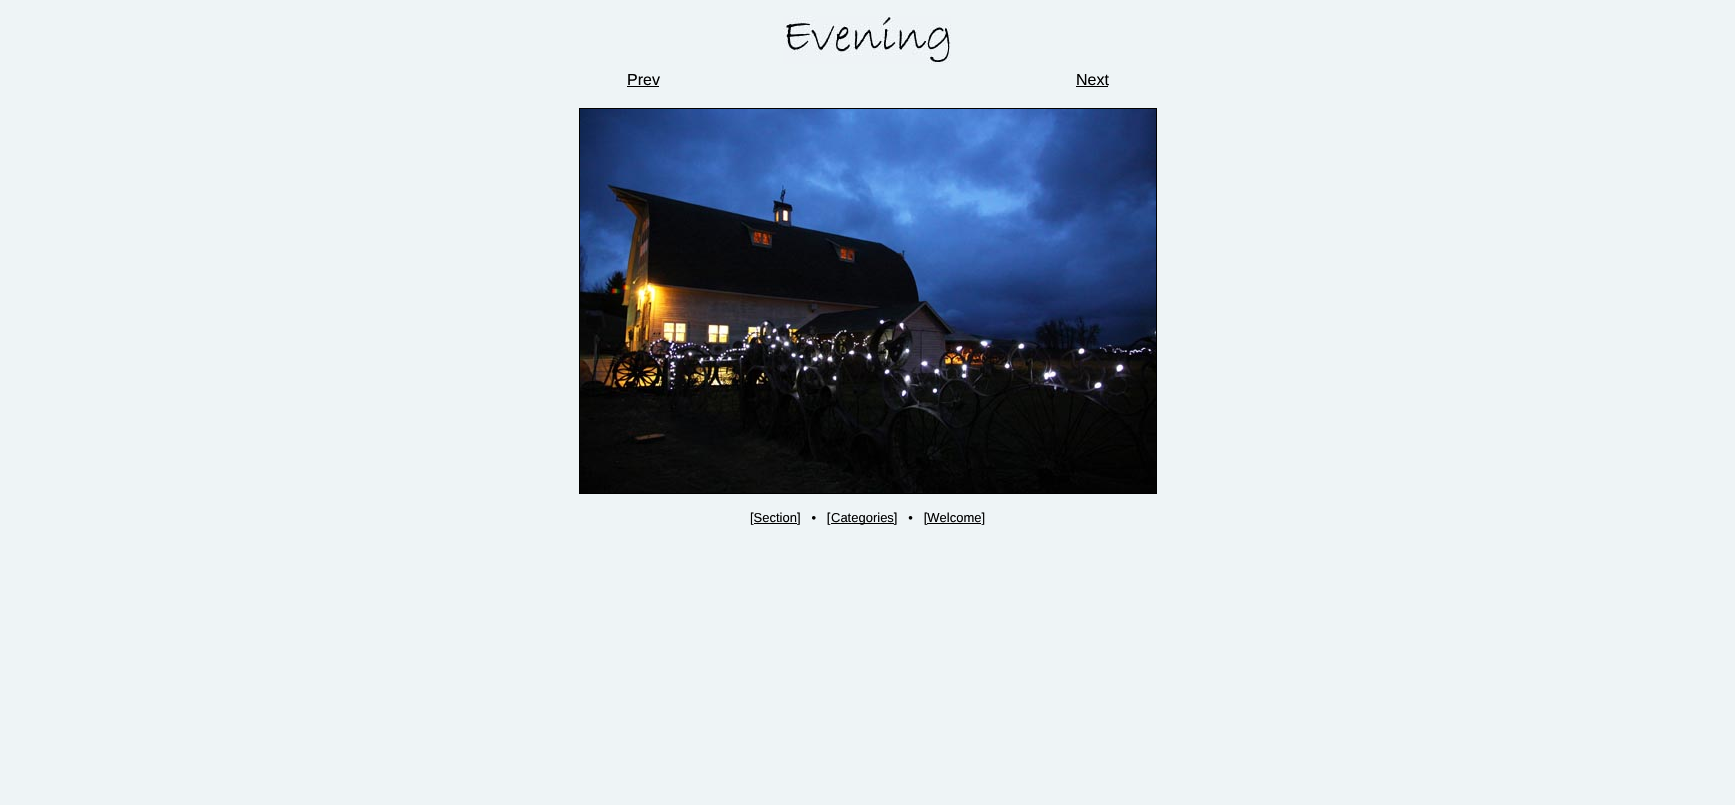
void draw(SkCanvas* canvas) {
	SkPaint paint;
	paint.setAntiAlias(true);
	canvas->clear(0xffeef4f6);
	canvas->drawImageRect(SkImages::DeferredFromEncodedData(SkData::MakeFromFileName("img1.png")), SkRect::MakeXYWH(783, 16, 168, 48), SkSamplingOptions());
	SkFont f1(fontMgr->matchFamilyStyle("Liberation Sans", SkFontStyle::Normal()), 16);
	f1.setSubpixel(true);
	paint.setColor(0xff000000);
	canvas->drawString("Prev", 627, 85, f1, paint);
	canvas->drawRect(SkRect::MakeXYWH(627, 86, 32, 1), paint);
	canvas->drawString("Next", 1076, 85, f1, paint);
	canvas->drawRect(SkRect::MakeXYWH(1076, 86, 32, 1), paint);
	paint.setStroke(true);
	paint.setStrokeWidth(1);
	canvas->drawRect(SkRect::MakeXYWH(579.5, 108.5, 577, 385), paint);
	canvas->drawImageRect(SkImages::DeferredFromEncodedData(SkData::MakeFromFileName("img2.png")), SkRect::MakeXYWH(580, 109, 576, 384), SkSamplingOptions());
	SkFont f2(fontMgr->matchFamilyStyle("Liberation Sans", SkFontStyle::Normal()), 13);
	f2.setSubpixel(true);
	paint.setStroke(false);
	canvas->drawString("[Section]   •   [", 750, 522, f2, paint);
	canvas->drawRect(SkRect::MakeXYWH(754, 523, 43, 1), paint);
	canvas->drawRect(SkRect::MakeXYWH(831, 523, 63, 1), paint);
	canvas->drawString("Categories]   •   [Welcome]", 831, 522, f2, paint);
	canvas->drawRect(SkRect::MakeXYWH(927, 523, 54, 1), paint);
}
